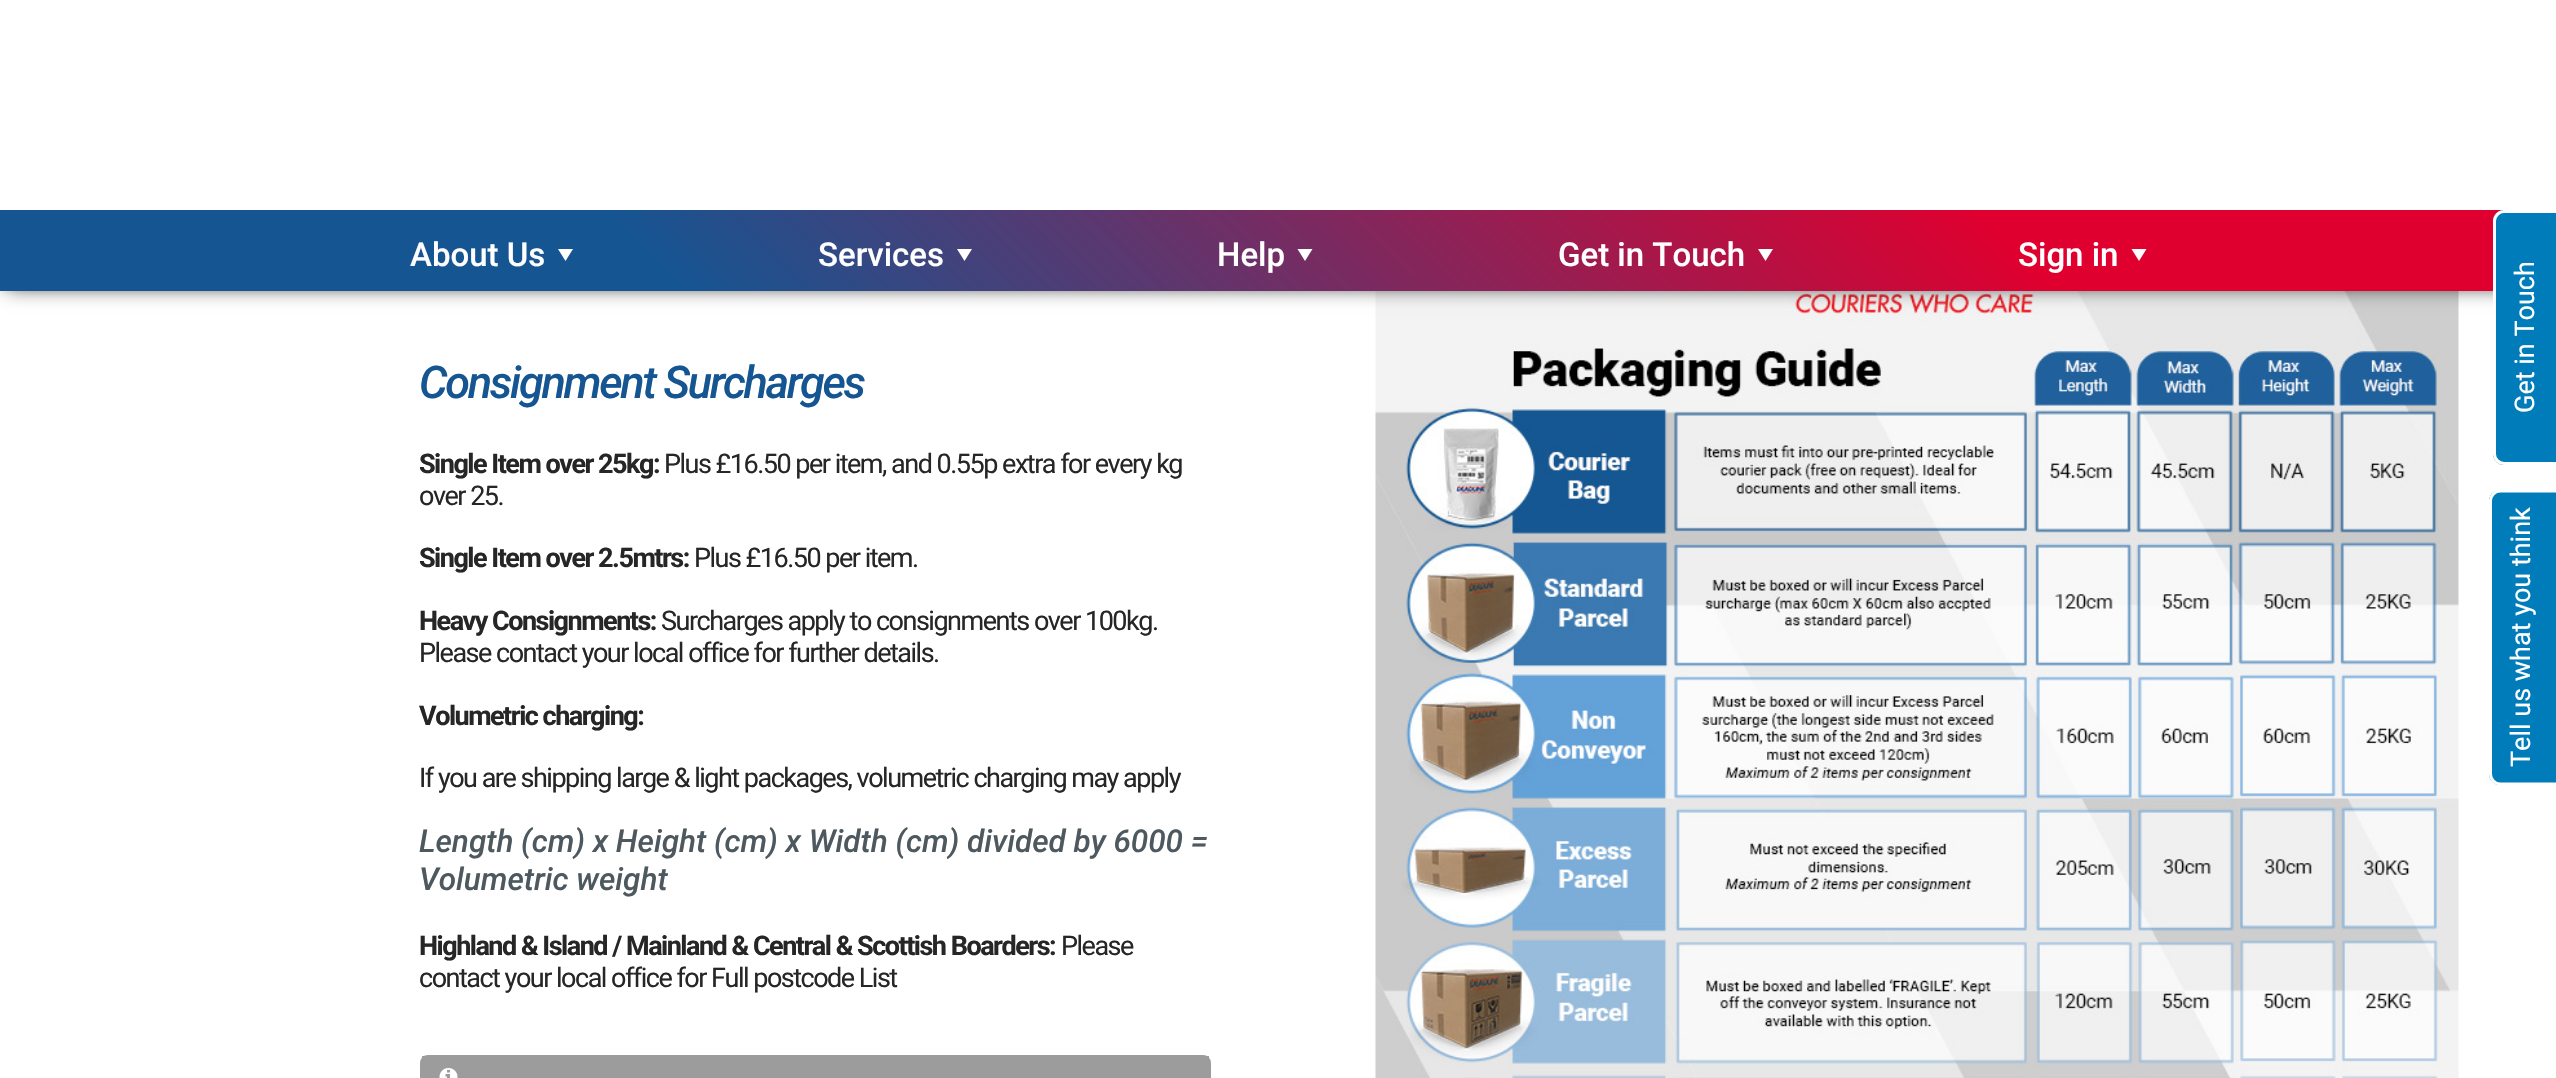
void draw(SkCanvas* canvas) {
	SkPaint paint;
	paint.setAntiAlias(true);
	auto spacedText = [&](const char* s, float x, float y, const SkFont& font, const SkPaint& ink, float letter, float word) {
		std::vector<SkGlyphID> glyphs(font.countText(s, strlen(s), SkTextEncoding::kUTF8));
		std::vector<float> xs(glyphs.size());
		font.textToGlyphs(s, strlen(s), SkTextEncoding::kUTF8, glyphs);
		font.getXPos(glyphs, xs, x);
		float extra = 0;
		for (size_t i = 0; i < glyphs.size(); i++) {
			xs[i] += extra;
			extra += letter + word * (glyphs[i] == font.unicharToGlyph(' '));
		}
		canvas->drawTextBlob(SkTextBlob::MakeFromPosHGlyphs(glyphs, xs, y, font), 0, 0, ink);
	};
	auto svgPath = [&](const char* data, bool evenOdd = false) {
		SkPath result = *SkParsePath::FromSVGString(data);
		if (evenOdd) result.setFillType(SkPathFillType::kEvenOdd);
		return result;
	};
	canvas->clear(0xffffffff);
	canvas->drawImageRect(SkImages::DeferredFromEncodedData(SkData::MakeFromFileName("img2.png")), SkRect::MakeXYWH(1375, 291, 1084, 787), SkSamplingOptions());
	paint.setColor(0xff000000);
	paint.setMaskFilter(SkMaskFilter::MakeBlur(kNormal_SkBlurStyle, 10));
	canvas->drawRect(SkRect::MakeXYWH(6, 6, 2544, 279), paint);
	paint.setMaskFilter(nullptr);
	paint.setColor(0xffffffff);
	canvas->drawRect(SkRect::MakeXYWH(0, 0, 2556, 210), paint);
	{
		const SkColor colors[] = {0xff155592, 0xff155592, 0xffdf002f, 0xffdf002f};
		const float stops[] = {0, 0.26, 0.78, 0.99};
		const SkPoint ends[] = {{619, 910}, {1937, -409}};
		paint.setShader(SkGradientShader::MakeLinear(ends, colors, stops, 4, SkTileMode::kClamp));
		paint.setAlpha(255);
	}
	canvas->drawRect(SkRect::MakeXYWH(0, 210, 2504, 81), paint);
	SkFont f1(fontMgr->matchFamilyStyle("Roboto", SkFontStyle(500, SkFontStyle::kNormal_Width, SkFontStyle::kUpright_Slant)), 33);
	f1.setSubpixel(true);
	paint.setShader(nullptr);
	paint.setColor(0xffffffff);
	canvas->drawString("About Us", 410, 266, f1, paint);
	canvas->drawPath(svgPath("M558 249H573L565.5 261Z"), paint);
	canvas->drawString("Services", 818, 266, f1, paint);
	canvas->drawPath(svgPath("M957 249H972L964.5 261Z"), paint);
	canvas->drawString("Help", 1217, 266, f1, paint);
	canvas->drawPath(svgPath("M1297.5 249H1312.5L1305 261Z"), paint);
	canvas->drawString("Get in Touch", 1558, 266, f1, paint);
	canvas->drawPath(svgPath("M1758 249H1773L1765.5 261Z"), paint);
	canvas->drawString("Sign in", 2018, 266, f1, paint);
	canvas->drawPath(svgPath("M2131.5 249H2146.5L2139 261Z"), paint);
	SkFont f2(fontMgr->matchFamilyStyle("Roboto", SkFontStyle(500, SkFontStyle::kNormal_Width, SkFontStyle::kItalic_Slant)), 45);
	f2.setSubpixel(true);
	paint.setColor(0xff155592);
	spacedText("Consignment Surcharges", 419, 398, f2, paint, -2.25, 0);
	SkFont f3(fontMgr->matchFamilyStyle("Roboto", SkFontStyle::Bold()), 27);
	f3.setSubpixel(true);
	paint.setColor(0xff262626);
	spacedText("Single Item over 25kg:", 419, 473, f3, paint, -1.5, 0);
	SkFont f4(fontMgr->matchFamilyStyle("Roboto", SkFontStyle::Normal()), 27);
	f4.setSubpixel(true);
	spacedText("Plus £16.50 per item, and 0.55p extra for every kg", 664, 473, f4, paint, -1.5, 0);
	spacedText("over 25.", 419, 505, f4, paint, -1.5, 0);
	spacedText("Single Item over 2.5mtrs:", 419, 567, f3, paint, -1.5, 0);
	spacedText("Plus £16.50 per item.", 694, 567, f4, paint, -1.5, 0);
	spacedText("Heavy Consignments:", 419, 630, f3, paint, -1.5, 0);
	spacedText("Surcharges apply to consignments over 100kg.", 661, 630, f4, paint, -1.5, 0);
	spacedText("Please contact your local office for further details.", 419, 662, f4, paint, -1.5, 0);
	spacedText("Volumetric charging:", 419, 725, f3, paint, -1.5, 0);
	spacedText("If you are shipping large & light packages, volumetric charging may apply", 419, 787, f4, paint, -1.5, 0);
	SkFont f5(fontMgr->matchFamilyStyle("Roboto", SkFontStyle(500, SkFontStyle::kNormal_Width, SkFontStyle::kItalic_Slant)), 31.5);
	f5.setSubpixel(true);
	paint.setColor(0xff4d585f);
	canvas->drawString("Length (cm) x Height (cm) x Width (cm) divided by 6000 =", 419, 852, f5, paint);
	canvas->drawString("Volumetric weight", 419, 890, f5, paint);
	paint.setColor(0xff262626);
	spacedText("Highland & Island / Mainland & Central & Scottish Boarders:", 419, 955, f3, paint, -1.5, 0);
	spacedText("Please", 1061, 955, f4, paint, -1.5, 0);
	spacedText("contact your local office for Full postcode List", 419, 987, f4, paint, -1.5, 0);
	paint.setStroke(true);
	paint.setStrokeWidth(2);
	paint.setColor(0xff9c9c9c);
	canvas->drawRoundRect(SkRect::MakeXYWH(421, 1056, 789, 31), 7, 7, paint);
	paint.setStroke(false);
	canvas->drawRect(SkRect::MakeXYWH(422, 1056, 787, 22), paint);
	canvas->drawImageRect(SkImages::DeferredFromEncodedData(SkData::MakeFromFileName("img1.png")), SkRect::MakeXYWH(439, 1068, 19, 10), SkSamplingOptions());
	paint.setColor(0xff007cba);
	canvas->drawPath(svgPath("M2493 454V221C2493 215 2498 210 2504 210H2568V465H2504C2498 465 2493 460 2493 454Z"), paint);
	paint.setStroke(true);
	paint.setStrokeWidth(3);
	paint.setColor(0xffffffff);
	canvas->drawPath(svgPath("M2494.5 454V221C2494.5 216 2499 211.5 2504 211.5H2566.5V463.5H2504C2499 463.5 2494.5 459 2494.5 454Z"), paint);
	paint.setStroke(false);
	canvas->save();
	canvas->rotate(-90, 2534, 413);
	canvas->drawString("Get in Touch", 2534, 413, f4, paint);
	canvas->restore();
	paint.setColor(0xff007cba);
	canvas->drawPath(svgPath("M2489 774V501C2489 495 2494 490 2500 490H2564V785H2500C2494 785 2489 780 2489 774Z"), paint);
	paint.setStroke(true);
	paint.setColor(0xffffffff);
	canvas->drawPath(svgPath("M2490.5 774V501C2490.5 495.5 2495 491 2500.5 491H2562.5V784H2500.5C2495 784 2490.5 779.5 2490.5 774Z"), paint);
	paint.setStroke(false);
	canvas->save();
	canvas->rotate(-90, 2530, 767);
	canvas->drawString("Tell us what you think", 2530, 767, f4, paint);
	canvas->restore();
}
